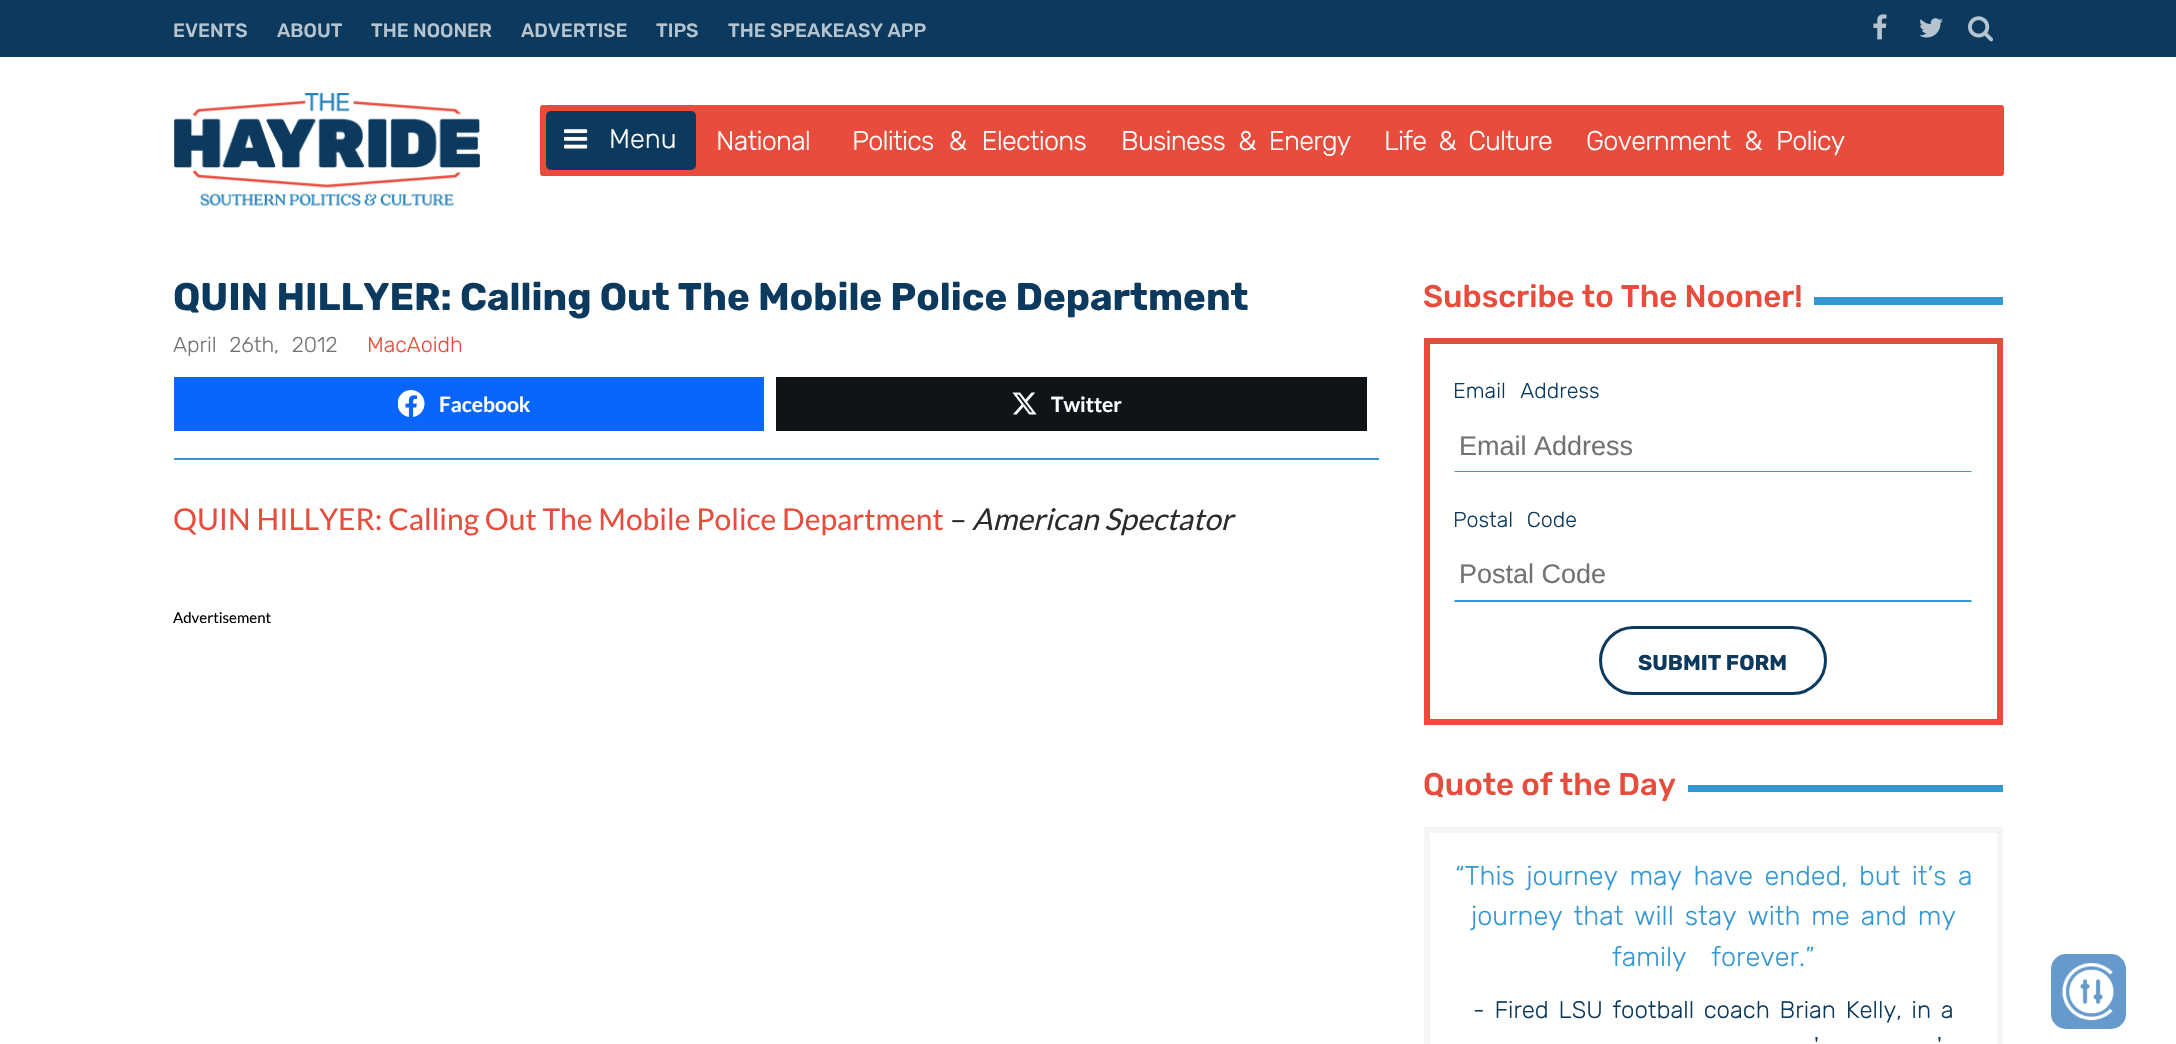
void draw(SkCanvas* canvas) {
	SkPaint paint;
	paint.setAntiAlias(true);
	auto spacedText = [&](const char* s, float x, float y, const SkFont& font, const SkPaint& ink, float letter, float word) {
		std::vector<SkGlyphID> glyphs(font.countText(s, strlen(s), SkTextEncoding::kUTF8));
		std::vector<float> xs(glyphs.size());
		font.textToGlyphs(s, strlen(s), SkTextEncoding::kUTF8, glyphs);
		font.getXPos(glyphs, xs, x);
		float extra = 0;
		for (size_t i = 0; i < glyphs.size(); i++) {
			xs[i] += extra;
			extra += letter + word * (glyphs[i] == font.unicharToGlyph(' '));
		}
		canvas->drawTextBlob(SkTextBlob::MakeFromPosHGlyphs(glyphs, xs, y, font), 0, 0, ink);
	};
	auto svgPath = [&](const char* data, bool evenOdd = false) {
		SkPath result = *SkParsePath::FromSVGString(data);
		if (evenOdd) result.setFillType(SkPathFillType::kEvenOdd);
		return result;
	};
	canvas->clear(0xffffffff);
	paint.setColor(0xff0c3a5e);
	canvas->drawRect(SkRect::MakeXYWH(0, 0, 2176, 57), paint);
	SkFont f1(fontMgr->matchFamilyStyle("Rubik", SkFontStyle(500, SkFontStyle::kNormal_Width, SkFontStyle::kUpright_Slant)), 19.25);
	f1.setSubpixel(true);
	paint.setColor(0xffb6c4cf);
	canvas->drawString("EVENTS", 173, 37, f1, paint);
	canvas->drawString("ABOUT", 277, 37, f1, paint);
	canvas->drawString("THE NOONER", 371, 37, f1, paint);
	canvas->drawString("ADVERTISE", 521, 37, f1, paint);
	canvas->drawString("TIPS", 656, 37, f1, paint);
	canvas->drawString("THE SPEAKEASY APP", 728, 37, f1, paint);
	canvas->drawImageRect(SkImages::DeferredFromEncodedData(SkData::MakeFromFileName("img1.png")), SkRect::MakeXYWH(1873, 14, 14, 26), SkSamplingOptions());
	canvas->drawImageRect(SkImages::DeferredFromEncodedData(SkData::MakeFromFileName("img2.png")), SkRect::MakeXYWH(1919, 18, 24, 20), SkSamplingOptions());
	canvas->drawImageRect(SkImages::DeferredFromEncodedData(SkData::MakeFromFileName("img3.png")), SkRect::MakeXYWH(1968, 16, 25, 26), SkSamplingOptions());
	canvas->drawImageRect(SkImages::DeferredFromEncodedData(SkData::MakeFromFileName("img4.png")), SkRect::MakeXYWH(174, 93, 306, 113), SkSamplingOptions());
	paint.setColor(0xffe84c3c);
	canvas->drawRoundRect(SkRect::MakeXYWH(540, 105, 1464, 71), 3, 3, paint);
	paint.setColor(0xff0c3a5e);
	canvas->drawRoundRect(SkRect::MakeXYWH(546, 111, 150, 59), 5, 5, paint);
	canvas->drawImageRect(SkImages::DeferredFromEncodedData(SkData::MakeFromFileName("img5.png")), SkRect::MakeXYWH(564, 129, 24, 20), SkSamplingOptions());
	SkFont f2(fontMgr->matchFamilyStyle("Rubik", SkFontStyle(300, SkFontStyle::kNormal_Width, SkFontStyle::kUpright_Slant)), 27);
	f2.setSubpixel(true);
	paint.setColor(0xffffffff);
	canvas->drawString("Menu", 609, 148, f2, paint);
	spacedText("National", 716, 150, f2, paint, -0.75, 0);
	spacedText("Politics & Elections", 852, 150, f2, paint, -0.75, 9);
	spacedText("Business & Energy", 1121, 150, f2, paint, -0.75, 7);
	spacedText("Life & Culture", 1384, 150, f2, paint, -0.75, 6);
	spacedText("Government & Policy", 1586, 150, f2, paint, -0.75, 8);
	SkFont f3(fontMgr->matchFamilyStyle("Rubik", SkFontStyle::Bold()), 38.4);
	f3.setSubpixel(true);
	paint.setColor(0xff0c3a5e);
	canvas->drawString("QUIN HILLYER: Calling Out The Mobile Police Department", 173, 310, f3, paint);
	SkFont f4(fontMgr->matchFamilyStyle("Rubik", SkFontStyle(300, SkFontStyle::kNormal_Width, SkFontStyle::kUpright_Slant)), 21.5);
	f4.setSubpixel(true);
	paint.setColor(0xff737373);
	spacedText("April 26th, 2012", 173, 352, f4, paint, 0, 7);
	paint.setColor(0xffe84c3c);
	canvas->drawString("MacAoidh", 367, 352, f4, paint);
	paint.setColor(0xff3597d3);
	canvas->drawRect(SkRect::MakeXYWH(174, 458, 1205, 2), paint);
	paint.setColor(0xff0866ff);
	canvas->drawRect(SkRect::MakeXYWH(174, 377, 590, 54), paint);
	canvas->drawImageRect(SkImages::DeferredFromEncodedData(SkData::MakeFromFileName("img6.png")), SkRect::MakeXYWH(398, 390, 27, 27), SkSamplingOptions());
	SkFont f5(fontMgr->matchFamilyStyle("Lato", SkFontStyle::Bold()), 21);
	f5.setSubpixel(true);
	paint.setColor(0xffffffff);
	canvas->drawString("Facebook", 439, 412, f5, paint);
	paint.setColor(0xff0f1419);
	canvas->drawRect(SkRect::MakeXYWH(776, 377, 591, 54), paint);
	canvas->drawImageRect(SkImages::DeferredFromEncodedData(SkData::MakeFromFileName("img7.png")), SkRect::MakeXYWH(1012, 392, 25, 23), SkSamplingOptions());
	paint.setColor(0xffffffff);
	canvas->drawString("Twitter", 1051, 412, f5, paint);
	SkFont f6(fontMgr->matchFamilyStyle("Lato", SkFontStyle::Normal()), 30);
	f6.setSubpixel(true);
	paint.setColor(0xffe84c3c);
	canvas->drawString("QUIN HILLYER: Calling Out The Mobile Police Department", 173, 530, f6, paint);
	paint.setColor(0xff292b2c);
	canvas->drawString("–", 950, 530, f6, paint);
	SkFont f7(fontMgr->matchFamilyStyle("Lato", SkFontStyle::Italic()), 30);
	f7.setSubpixel(true);
	canvas->drawString("American Spectator", 972, 530, f7, paint);
	SkFont f8(fontMgr->matchFamilyStyle("Lato", SkFontStyle::Normal()), 15);
	f8.setSubpixel(true);
	paint.setColor(0xff000000);
	canvas->drawString("Advertisement", 173, 623, f8, paint);
	SkFont f9(fontMgr->matchFamilyStyle("Rubik", SkFontStyle(500, SkFontStyle::kNormal_Width, SkFontStyle::kUpright_Slant)), 31.25);
	f9.setSubpixel(true);
	paint.setColor(0xffe84c3c);
	canvas->drawString("Subscribe to The Nooner!", 1423, 307, f9, paint);
	paint.setColor(0xff3597d3);
	canvas->drawRect(SkRect::MakeXYWH(1814, 297, 189, 8), paint);
	paint.setStroke(true);
	paint.setStrokeWidth(6);
	paint.setColor(0xffe84c3c);
	canvas->drawRect(SkRect::MakeXYWH(1427, 341, 573, 381), paint);
	paint.setStroke(false);
	paint.setColor(0xff0c3a5e);
	spacedText("Email Address", 1453, 398, f4, paint, 0, 9);
	paint.setColor(0xff3597d3);
	canvas->drawPath(svgPath("M1972 472H1454L1455 471H1971Z"), paint);
	SkFont f10(fontMgr->matchFamilyStyle("Liberation Sans", SkFontStyle::Normal()), 27);
	f10.setSubpixel(true);
	paint.setColor(0xff737373);
	canvas->drawString("Email Address", 1459, 455, f10, paint);
	paint.setColor(0xff0c3a5e);
	spacedText("Postal Code", 1453, 527, f4, paint, 0, 8);
	paint.setColor(0xff3597d3);
	canvas->drawPath(svgPath("M1972 602H1454L1455 600H1971Z"), paint);
	paint.setColor(0xff737373);
	canvas->drawString("Postal Code", 1459, 583, f10, paint);
	paint.setStroke(true);
	paint.setStrokeWidth(3);
	paint.setColor(0xff0c3a5e);
	canvas->drawRoundRect(SkRect::MakeXYWH(1600.5, 627.5, 225, 66), 33, 33, paint);
	SkFont f11(fontMgr->matchFamilyStyle("Rubik", SkFontStyle::Bold()), 21.5);
	f11.setSubpixel(true);
	paint.setStroke(false);
	canvas->drawString("SUBMIT FORM", 1638, 670, f11, paint);
	paint.setColor(0xffe84c3c);
	canvas->drawString("Quote of the Day", 1423, 795, f9, paint);
	paint.setColor(0xff3597d3);
	canvas->drawRect(SkRect::MakeXYWH(1688, 785, 315, 7), paint);
	paint.setStroke(true);
	paint.setStrokeWidth(6);
	paint.setColor(0xfff5f5f5);
	canvas->drawRect(SkRect::MakeXYWH(1427, 830, 573, 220), paint);
	paint.setStroke(false);
	paint.setColor(0xff3597d3);
	spacedText("“This journey may have ended, but it’s a", 1455, 885, f2, paint, 0, 4.5);
	spacedText("journey that will stay with me and my", 1471, 925, f2, paint, 0, 4);
	spacedText("family forever.”", 1612, 966, f2, paint, 0, 18);
	SkFont f12(fontMgr->matchFamilyStyle("Rubik", SkFontStyle(300, SkFontStyle::kNormal_Width, SkFontStyle::kUpright_Slant)), 24);
	f12.setSubpixel(true);
	paint.setColor(0xff0c3a5e);
	spacedText("- Fired LSU football coach Brian Kelly, in a", 1473, 1018, f12, paint, 0, 3.5);
	spacedText("'", 1814, 1054, f12, paint, 0, 4);
	spacedText("'", 1937, 1054, f12, paint, 0, 4);
	paint.setColor(0xff6699cc);
	canvas->drawRoundRect(SkRect::MakeXYWH(2051, 954, 75, 75), 15, 15, paint);
	canvas->drawImageRect(SkImages::DeferredFromEncodedData(SkData::MakeFromFileName("img8.png")), SkRect::MakeXYWH(2062, 963, 52, 58), SkSamplingOptions());
}
